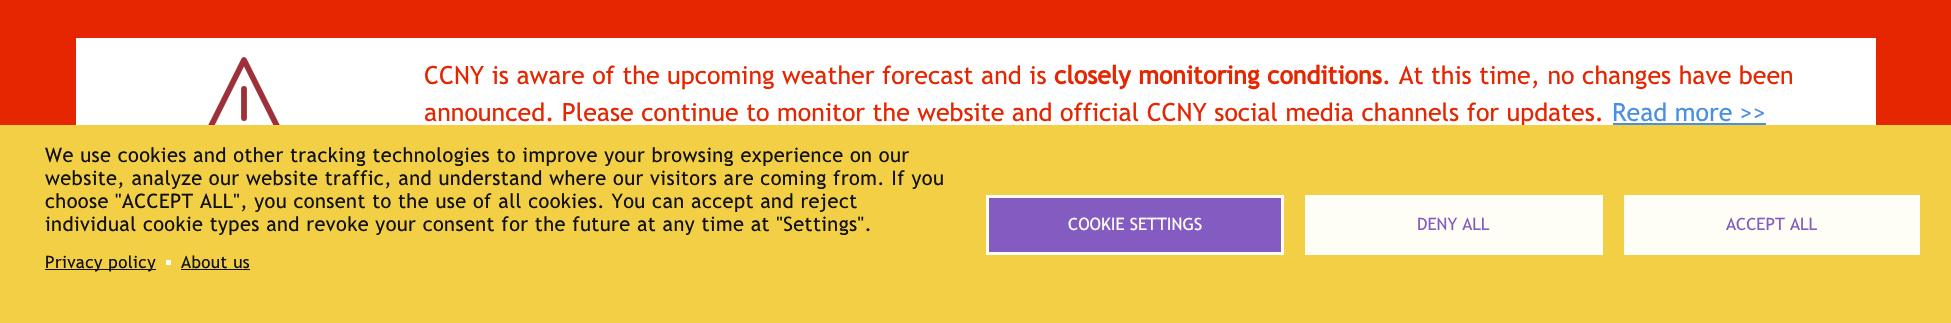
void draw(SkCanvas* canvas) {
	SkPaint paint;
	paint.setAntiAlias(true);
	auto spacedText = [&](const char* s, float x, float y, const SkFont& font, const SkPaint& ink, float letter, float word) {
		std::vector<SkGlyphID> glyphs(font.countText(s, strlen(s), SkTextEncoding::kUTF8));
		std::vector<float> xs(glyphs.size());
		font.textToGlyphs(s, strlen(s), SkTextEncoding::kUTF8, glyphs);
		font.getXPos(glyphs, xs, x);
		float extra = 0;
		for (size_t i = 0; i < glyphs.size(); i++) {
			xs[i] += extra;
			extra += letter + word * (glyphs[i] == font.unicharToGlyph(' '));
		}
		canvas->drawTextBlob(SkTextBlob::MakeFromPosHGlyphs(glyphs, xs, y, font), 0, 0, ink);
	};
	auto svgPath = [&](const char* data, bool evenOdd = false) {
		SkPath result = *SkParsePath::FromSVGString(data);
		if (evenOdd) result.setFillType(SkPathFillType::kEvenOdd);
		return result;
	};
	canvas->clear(0xffe62600);
	paint.setColor(0xffffffff);
	canvas->drawRect(SkRect::MakeXYWH(76, 38, 1800, 87), paint);
	paint.setStroke(true);
	paint.setStrokeWidth(5.8);
	paint.setStrokeCap(SkPaint::kRound_Cap);
	paint.setStrokeJoin(SkPaint::kRound_Join);
	paint.setColor(0xff9e3039);
	canvas->drawPath(svgPath("M244 118V89M285.5 143H202.5L244 60Z"), paint);
	SkFont f1(fontMgr->matchFamilyStyle("Trebuchet MS", SkFontStyle::Normal()), 25);
	f1.setSubpixel(true);
	paint.setStroke(false);
	paint.setColor(0xffe62600);
	canvas->drawString("CCNY is aware of the upcoming weather forecast and is", 424, 84, f1, paint);
	SkFont f2(fontMgr->matchFamilyStyle("Trebuchet MS", SkFontStyle::Bold()), 25);
	f2.setSubpixel(true);
	canvas->drawString("closely monitoring conditions", 1054, 84, f2, paint);
	canvas->drawString(". At this time, no changes have been", 1382, 84, f1, paint);
	canvas->drawString("announced. Please continue to monitor the website and official CCNY social media channels for updates.", 424, 121, f1, paint);
	paint.setColor(0xff4a90e2);
	canvas->drawString("Read more >>", 1612, 121, f1, paint);
	canvas->drawRect(SkRect::MakeXYWH(1613, 123, 153, 2), paint);
	paint.setColor(0xfff3cf45);
	canvas->drawRect(SkRect::MakeXYWH(0, 125, 1951, 198), paint);
	SkFont f3(fontMgr->matchFamilyStyle("Trebuchet MS", SkFontStyle::Normal()), 20);
	f3.setSubpixel(true);
	paint.setColor(0xff111111);
	spacedText("We use cookies and other tracking technologies to improve your browsing experience on our", 45, 162, f3, paint, 0.4, 0);
	spacedText("website, analyze our website traffic, and understand where our visitors are coming from. If you", 45, 185, f3, paint, 0.4, 0);
	spacedText("choose \"ACCEPT ALL\", you consent to the use of all cookies. You can accept and reject", 45, 208, f3, paint, 0.4, 0);
	spacedText("individual cookie types and revoke your consent for the future at any time at \"Settings\".", 45, 231, f3, paint, 0.4, 0);
	canvas->drawRect(SkRect::MakeXYWH(45, 269, 111, 1), paint);
	SkFont f4(fontMgr->matchFamilyStyle("Trebuchet MS", SkFontStyle::Normal()), 17);
	f4.setSubpixel(true);
	spacedText("Privacy policy", 45, 268, f4, paint, 0.4, 0);
	paint.setColor(0xffffffff);
	canvas->drawRect(SkRect::MakeXYWH(166, 260, 5, 5), paint);
	paint.setColor(0xff111111);
	spacedText("About us", 181, 268, f4, paint, 0.4, 0);
	canvas->drawRect(SkRect::MakeXYWH(181, 269, 69, 1), paint);
	paint.setColor(0xff835bc1);
	canvas->drawRect(SkRect::MakeXYWH(987.5, 196.5, 295, 57), paint);
	paint.setStroke(true);
	paint.setStrokeWidth(3);
	paint.setStrokeCap(SkPaint::kButt_Cap);
	paint.setStrokeJoin(SkPaint::kMiter_Join);
	paint.setColor(0xfffefdf6);
	canvas->drawRect(SkRect::MakeXYWH(987.5, 196.5, 295, 57), paint);
	paint.setStroke(false);
	canvas->drawString("COOKIE SETTINGS", 1068, 230, f4, paint);
	canvas->drawRect(SkRect::MakeXYWH(1305, 195, 298, 60), paint);
	paint.setColor(0xff835bc1);
	canvas->drawString("DENY ALL", 1417, 230, f4, paint);
	paint.setColor(0xfffefdf6);
	canvas->drawRect(SkRect::MakeXYWH(1624, 195, 296, 60), paint);
	paint.setColor(0xff835bc1);
	canvas->drawString("ACCEPT ALL", 1726, 230, f4, paint);
}
